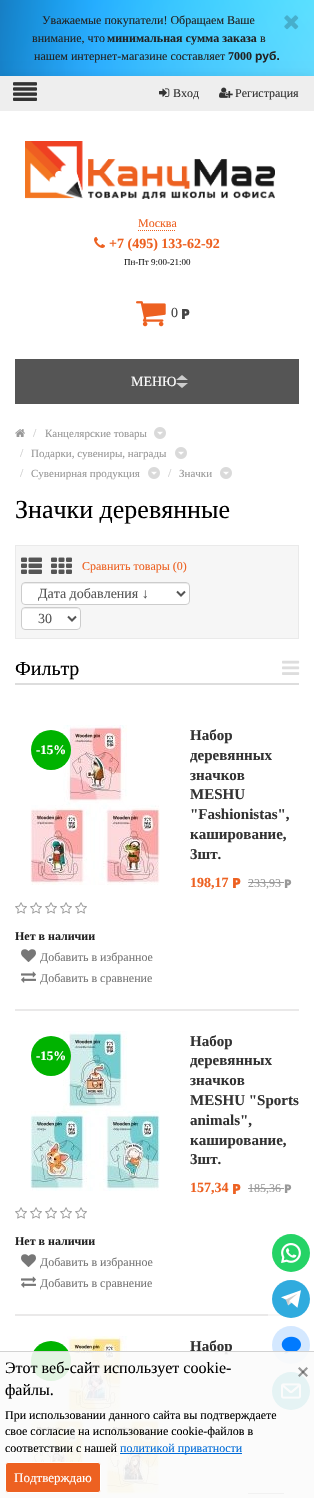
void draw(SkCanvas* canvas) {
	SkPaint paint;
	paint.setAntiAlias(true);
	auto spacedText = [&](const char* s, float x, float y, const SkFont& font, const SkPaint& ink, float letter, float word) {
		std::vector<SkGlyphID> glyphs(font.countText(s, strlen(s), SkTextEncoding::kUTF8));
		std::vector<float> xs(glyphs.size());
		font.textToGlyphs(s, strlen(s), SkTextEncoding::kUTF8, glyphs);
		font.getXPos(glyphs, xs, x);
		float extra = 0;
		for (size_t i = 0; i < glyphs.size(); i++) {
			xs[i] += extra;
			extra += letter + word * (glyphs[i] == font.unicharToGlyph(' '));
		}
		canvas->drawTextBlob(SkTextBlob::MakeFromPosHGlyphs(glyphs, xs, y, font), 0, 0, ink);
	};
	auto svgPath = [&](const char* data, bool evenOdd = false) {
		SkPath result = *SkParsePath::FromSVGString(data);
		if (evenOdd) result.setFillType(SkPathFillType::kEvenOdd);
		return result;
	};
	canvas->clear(0xffffffff);
	canvas->drawImageRect(SkImages::DeferredFromEncodedData(SkData::MakeFromFileName("img1.png")), SkRect::MakeXYWH(0, 0, 314, 76), SkSamplingOptions());
	SkFont f1(fontMgr->matchFamilyStyle("Liberation Serif", SkFontStyle::Normal()), 12);
	f1.setSubpixel(true);
	paint.setColor(0xff222222);
	canvas->drawString("Уважаемые покупатели! Обращаем Ваше", 42, 24, f1, paint);
	canvas->drawString("внимание, что", 32, 42, f1, paint);
	SkFont f2(fontMgr->matchFamilyStyle("Liberation Serif", SkFontStyle::Bold()), 12);
	f2.setSubpixel(true);
	canvas->drawString("минимальная сумма заказа", 107, 42, f2, paint);
	canvas->drawString("в", 260, 42, f1, paint);
	paint.setColor(0x14000000);
	paint.setMaskFilter(SkMaskFilter::MakeBlur(kNormal_SkBlurStyle, 5));
	canvas->drawRect(SkRect::MakeXYWH(0, 76, 314, 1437), paint);
	paint.setMaskFilter(nullptr);
	paint.setColor(0xff222222);
	canvas->drawString("нашем интернет-магазине составляет", 34, 60, f1, paint);
	canvas->drawString("7000", 228, 60, f2, paint);
	SkFont f3(fontMgr->matchFamilyStyle("Liberation Sans", SkFontStyle::Bold()), 12);
	f3.setSubpixel(true);
	canvas->drawString("руб.", 255, 60, f3, paint);
	canvas->drawImageRect(SkImages::DeferredFromEncodedData(SkData::MakeFromFileName("img2.png")), SkRect::MakeXYWH(284, 15, 15, 15), SkSamplingOptions());
	paint.setColor(0xffffffff);
	canvas->drawRect(SkRect::MakeXYWH(0, 111, 314, 1387), paint);
	paint.setColor(0xffeeeeee);
	canvas->drawRect(SkRect::MakeXYWH(0, 76, 314, 35), paint);
	canvas->drawImageRect(SkImages::DeferredFromEncodedData(SkData::MakeFromFileName("img3.png")), SkRect::MakeXYWH(13, 82, 24, 19), SkSamplingOptions());
	canvas->drawImageRect(SkImages::DeferredFromEncodedData(SkData::MakeFromFileName("img4.png")), SkRect::MakeXYWH(159, 88, 11, 9), SkSamplingOptions());
	paint.setColor(0xff333333);
	canvas->drawString("Вход", 173, 97, f1, paint);
	canvas->drawImageRect(SkImages::DeferredFromEncodedData(SkData::MakeFromFileName("img5.png")), SkRect::MakeXYWH(219, 87, 14, 11), SkSamplingOptions());
	canvas->drawString("Регистрация", 235, 97, f1, paint);
	canvas->drawImageRect(SkImages::DeferredFromEncodedData(SkData::MakeFromFileName("img6.png")), SkRect::MakeXYWH(25, 141, 250, 58), SkSamplingOptions());
	paint.setColor(0xffed6121);
	canvas->drawString("Москва", 138, 227, f1, paint);
	paint.setStroke(true);
	paint.setStrokeWidth(1);
	paint.setPathEffect(SkDashPathEffect::Make({{1, 1}}, 0));
	canvas->drawPath(svgPath("M138 230.5H176"), paint);
	paint.setPathEffect(nullptr);
	canvas->drawImageRect(SkImages::DeferredFromEncodedData(SkData::MakeFromFileName("img7.png")), SkRect::MakeXYWH(94, 237, 11, 11), SkSamplingOptions());
	SkFont f4(fontMgr->matchFamilyStyle("Liberation Serif", SkFontStyle::Bold()), 14);
	f4.setSubpixel(true);
	paint.setStroke(false);
	canvas->drawString("+7 (495) 133-62-92", 109, 248, f4, paint);
	SkFont f5(fontMgr->matchFamilyStyle("Liberation Serif", SkFontStyle::Normal()), 9);
	f5.setSubpixel(true);
	paint.setColor(0xff222222);
	canvas->drawString("Пн-Пт 9:00-21:00", 124, 265, f5, paint);
	canvas->drawImageRect(SkImages::DeferredFromEncodedData(SkData::MakeFromFileName("img8.png")), SkRect::MakeXYWH(136, 301, 30, 26), SkSamplingOptions());
	SkFont f6(fontMgr->matchFamilyStyle("Liberation Serif", SkFontStyle::Normal()), 14);
	f6.setSubpixel(true);
	paint.setColor(0xff444444);
	canvas->drawString("0", 171, 317, f6, paint);
	SkFont f7(fontMgr->matchFamilyStyle("Noto Sans", SkFontStyle(900, SkFontStyle::kNormal_Width, SkFontStyle::kUpright_Slant)), 14);
	f7.setSubpixel(true);
	spacedText("Р", 181, 319, f7, paint, 2, 0);
	paint.setColor(0xff555555);
	canvas->drawRect(SkRect::MakeXYWH(15, 359, 284, 45), paint);
	paint.setColor(0xffffffff);
	canvas->drawString("МЕНЮ", 131, 386, f6, paint);
	paint.setColor(0xffcccccc);
	canvas->drawPath(svgPath("M188 380H176L182 375ZM176 383H188L182 388Z"), paint);
	canvas->drawImageRect(SkImages::DeferredFromEncodedData(SkData::MakeFromFileName("img9.png")), SkRect::MakeXYWH(15, 429, 10, 8), SkSamplingOptions());
	canvas->drawString("/", 33, 437, f1, paint);
	SkFont f8(fontMgr->matchFamilyStyle("Liberation Serif", SkFontStyle::Normal()), 11);
	f8.setSubpixel(true);
	paint.setColor(0xff999999);
	canvas->drawString("Канцелярские товары", 45, 437, f8, paint);
	canvas->drawImageRect(SkImages::DeferredFromEncodedData(SkData::MakeFromFileName("img10.png")), SkRect::MakeXYWH(154, 427, 12, 12), SkSamplingOptions());
	paint.setColor(0xffcccccc);
	canvas->drawString("/", 20, 457, f1, paint);
	paint.setColor(0xff999999);
	canvas->drawString("Подарки, сувениры, награды", 31, 457, f8, paint);
	canvas->drawImageRect(SkImages::DeferredFromEncodedData(SkData::MakeFromFileName("img10.png")), SkRect::MakeXYWH(175, 447, 12, 12), SkSamplingOptions());
	paint.setColor(0xffcccccc);
	canvas->drawString("/", 20, 477, f1, paint);
	paint.setColor(0xff999999);
	canvas->drawString("Сувенирная продукция", 31, 477, f8, paint);
	canvas->drawImageRect(SkImages::DeferredFromEncodedData(SkData::MakeFromFileName("img10.png")), SkRect::MakeXYWH(148, 467, 12, 12), SkSamplingOptions());
	paint.setColor(0xffcccccc);
	canvas->drawString("/", 168, 477, f1, paint);
	paint.setColor(0xff999999);
	canvas->drawString("Значки", 179, 477, f8, paint);
	canvas->drawImageRect(SkImages::DeferredFromEncodedData(SkData::MakeFromFileName("img10.png")), SkRect::MakeXYWH(220, 467, 12, 12), SkSamplingOptions());
	SkFont f9(fontMgr->matchFamilyStyle("Liberation Serif", SkFontStyle::Normal()), 26);
	f9.setSubpixel(true);
	paint.setColor(0xff000000);
	canvas->drawString("Значки деревянные", 15, 518, f9, paint);
	paint.setColor(0xfff6f6f6);
	canvas->drawRect(SkRect::MakeXYWH(15.5, 545.5, 283, 93), paint);
	paint.setStroke(true);
	paint.setColor(0xffeaeaea);
	canvas->drawRect(SkRect::MakeXYWH(15.5, 545.5, 283, 93), paint);
	canvas->drawImageRect(SkImages::DeferredFromEncodedData(SkData::MakeFromFileName("img11.png")), SkRect::MakeXYWH(21, 557, 21, 17), SkSamplingOptions());
	canvas->drawImageRect(SkImages::DeferredFromEncodedData(SkData::MakeFromFileName("img12.png")), SkRect::MakeXYWH(51, 557, 21, 17), SkSamplingOptions());
	paint.setStroke(false);
	paint.setColor(0xffed6121);
	canvas->drawString("Сравнить товары (0)", 82, 570, f1, paint);
	paint.setColor(0xffffffff);
	canvas->drawRoundRect(SkRect::MakeXYWH(21, 582, 169, 23), 4, 4, paint);
	paint.setColor(0xffececec);
	canvas->drawPath(svgPath("M25 584H186C188 584 189 585 189 587V586C189 584 188 583 186 583H25C23 583 22 584 22 586V587C22 585 23 584 25 584Z"), paint);
	paint.setStroke(true);
	paint.setColor(0xffcccccc);
	canvas->drawRoundRect(SkRect::MakeXYWH(21.5, 582.5, 168, 22), 3.5, 3.5, paint);
	paint.setStrokeWidth(2);
	paint.setColor(0xff555555);
	canvas->drawPath(svgPath("M177 591.5L181 595.5L185 591.5"), paint);
	paint.setStroke(false);
	canvas->drawString("Дата добавления ↓", 38, 598, f6, paint);
	paint.setColor(0xffffffff);
	canvas->drawRoundRect(SkRect::MakeXYWH(21, 607, 60, 23), 4, 4, paint);
	paint.setColor(0xffececec);
	canvas->drawPath(svgPath("M25 609H77C79 609 80 610 80 612C80 606 73 608 68 608H34C29 608 22 606 22 612C22 610 23 609 25 609Z"), paint);
	paint.setStroke(true);
	paint.setStrokeWidth(1);
	paint.setColor(0xffcccccc);
	canvas->drawRoundRect(SkRect::MakeXYWH(21.5, 607.5, 59, 22), 3.5, 3.5, paint);
	paint.setStrokeWidth(2);
	paint.setColor(0xff555555);
	canvas->drawPath(svgPath("M68 616.5L72 620.5L76 616.5"), paint);
	paint.setStroke(false);
	canvas->drawString("30", 38, 623, f6, paint);
	paint.setColor(0xffdddddd);
	canvas->drawRect(SkRect::MakeXYWH(15, 683, 284, 2), paint);
	SkFont f10(fontMgr->matchFamilyStyle("Liberation Serif", SkFontStyle::Normal()), 20);
	f10.setSubpixel(true);
	paint.setColor(0xff000000);
	canvas->drawString("Фильтр", 15, 675, f10, paint);
	canvas->drawImageRect(SkImages::DeferredFromEncodedData(SkData::MakeFromFileName("img13.png")), SkRect::MakeXYWH(282, 660, 18, 15), SkSamplingOptions());
	canvas->drawImageRect(SkImages::DeferredFromEncodedData(SkData::MakeFromFileName("img14.png")), SkRect::MakeXYWH(30, 725, 130, 160), SkSamplingOptions());
	SkFont f11(fontMgr->matchFamilyStyle("Liberation Serif", SkFontStyle::Bold()), 15);
	f11.setSubpixel(true);
	paint.setColor(0xff333333);
	canvas->drawString("Набор", 190, 740, f11, paint);
	canvas->drawString("деревянных", 190, 760, f11, paint);
	canvas->drawString("значков", 190, 780, f11, paint);
	canvas->drawString("MESHU", 190, 799, f11, paint);
	canvas->drawString("\"Fashionistas\",", 190, 819, f11, paint);
	canvas->drawString("каширование,", 190, 839, f11, paint);
	canvas->drawString("3шт.", 190, 859, f11, paint);
	paint.setColor(0xff00b300);
	canvas->drawCircle(51, 750, 20, paint);
	SkFont f12(fontMgr->matchFamilyStyle("Liberation Serif", SkFontStyle::Bold()), 13);
	f12.setSubpixel(true);
	paint.setColor(0xffffffff);
	canvas->drawString("-15%", 36, 754, f12, paint);
	paint.setColor(0xffed6121);
	canvas->drawString("198,17", 190, 887, f4, paint);
	spacedText("Р", 232, 888, f7, paint, 2, 0);
	paint.setColor(0xff999999);
	canvas->drawString("233,93", 248, 887, f1, paint);
	canvas->drawRect(SkRect::MakeXYWH(248, 882, 36, 1), paint);
	SkFont f13(fontMgr->matchFamilyStyle("Noto Sans", SkFontStyle(900, SkFontStyle::kNormal_Width, SkFontStyle::kUpright_Slant)), 12);
	f13.setSubpixel(true);
	spacedText("Р", 284, 888, f13, paint, 2, 0);
	canvas->drawImageRect(SkImages::DeferredFromEncodedData(SkData::MakeFromFileName("img15.png")), SkRect::MakeXYWH(15, 902, 12, 12), SkSamplingOptions());
	canvas->drawImageRect(SkImages::DeferredFromEncodedData(SkData::MakeFromFileName("img15.png")), SkRect::MakeXYWH(30, 902, 12, 12), SkSamplingOptions());
	canvas->drawImageRect(SkImages::DeferredFromEncodedData(SkData::MakeFromFileName("img15.png")), SkRect::MakeXYWH(45, 902, 12, 12), SkSamplingOptions());
	canvas->drawImageRect(SkImages::DeferredFromEncodedData(SkData::MakeFromFileName("img15.png")), SkRect::MakeXYWH(60, 902, 12, 12), SkSamplingOptions());
	canvas->drawImageRect(SkImages::DeferredFromEncodedData(SkData::MakeFromFileName("img15.png")), SkRect::MakeXYWH(75, 902, 12, 12), SkSamplingOptions());
	paint.setColor(0xff222222);
	canvas->drawString("Нет в наличии", 15, 940, f2, paint);
	canvas->drawImageRect(SkImages::DeferredFromEncodedData(SkData::MakeFromFileName("img16.png")), SkRect::MakeXYWH(21, 949, 15, 13), SkSamplingOptions());
	paint.setColor(0xff777777);
	canvas->drawString("Добавить в избранное", 40, 961, f1, paint);
	canvas->drawImageRect(SkImages::DeferredFromEncodedData(SkData::MakeFromFileName("img17.png")), SkRect::MakeXYWH(21, 971, 15, 12), SkSamplingOptions());
	canvas->drawString("Добавить в сравнение", 40, 982, f1, paint);
	paint.setColor(0xffeae9e9);
	canvas->drawRect(SkRect::MakeXYWH(15, 1009, 284, 2), paint);
	canvas->drawImageRect(SkImages::DeferredFromEncodedData(SkData::MakeFromFileName("img18.png")), SkRect::MakeXYWH(30, 1031, 130, 160), SkSamplingOptions());
	paint.setColor(0xff333333);
	canvas->drawString("Набор", 190, 1046, f11, paint);
	canvas->drawString("деревянных", 190, 1065, f11, paint);
	canvas->drawString("значков", 190, 1085, f11, paint);
	canvas->drawString("MESHU \"Sports", 190, 1105, f11, paint);
	canvas->drawString("animals\",", 190, 1125, f11, paint);
	canvas->drawString("каширование,", 190, 1145, f11, paint);
	canvas->drawString("3шт.", 190, 1164, f11, paint);
	paint.setColor(0xff00b300);
	canvas->drawCircle(51, 1056, 20, paint);
	paint.setColor(0xffffffff);
	canvas->drawString("-15%", 36, 1060, f12, paint);
	paint.setColor(0xffed6121);
	canvas->drawString("157,34", 190, 1192, f4, paint);
	spacedText("Р", 232, 1194, f7, paint, 2, 0);
	paint.setColor(0xff999999);
	canvas->drawString("185,36", 248, 1192, f1, paint);
	canvas->drawRect(SkRect::MakeXYWH(248, 1188, 36, 1), paint);
	spacedText("Р", 284, 1193, f13, paint, 2, 0);
	canvas->drawImageRect(SkImages::DeferredFromEncodedData(SkData::MakeFromFileName("img15.png")), SkRect::MakeXYWH(15, 1207, 12, 12), SkSamplingOptions());
	canvas->drawImageRect(SkImages::DeferredFromEncodedData(SkData::MakeFromFileName("img15.png")), SkRect::MakeXYWH(30, 1207, 12, 12), SkSamplingOptions());
	canvas->drawImageRect(SkImages::DeferredFromEncodedData(SkData::MakeFromFileName("img15.png")), SkRect::MakeXYWH(45, 1207, 12, 12), SkSamplingOptions());
	canvas->drawImageRect(SkImages::DeferredFromEncodedData(SkData::MakeFromFileName("img15.png")), SkRect::MakeXYWH(60, 1207, 12, 12), SkSamplingOptions());
	canvas->drawImageRect(SkImages::DeferredFromEncodedData(SkData::MakeFromFileName("img15.png")), SkRect::MakeXYWH(75, 1207, 12, 12), SkSamplingOptions());
	paint.setColor(0xff222222);
	canvas->drawString("Нет в наличии", 15, 1245, f2, paint);
	canvas->drawImageRect(SkImages::DeferredFromEncodedData(SkData::MakeFromFileName("img16.png")), SkRect::MakeXYWH(21, 1254, 15, 13), SkSamplingOptions());
	paint.setColor(0xff777777);
	canvas->drawString("Добавить в избранное", 40, 1266, f1, paint);
	canvas->drawImageRect(SkImages::DeferredFromEncodedData(SkData::MakeFromFileName("img17.png")), SkRect::MakeXYWH(21, 1276, 15, 12), SkSamplingOptions());
	canvas->drawString("Добавить в сравнение", 40, 1287, f1, paint);
	paint.setColor(0xffeae9e9);
	canvas->drawRect(SkRect::MakeXYWH(15, 1314, 268, 2), paint);
	canvas->drawImageRect(SkImages::DeferredFromEncodedData(SkData::MakeFromFileName("img19.png")), SkRect::MakeXYWH(29, 1336, 132, 160), SkSamplingOptions());
	paint.setColor(0xff333333);
	canvas->drawString("Набор", 190, 1351, f11, paint);
	paint.setColor(0xff00b300);
	canvas->drawCircle(51, 1361, 20, paint);
	paint.setColor(0xff999999);
	canvas->drawRect(SkRect::MakeXYWH(248, 1493, 36, 1), paint);
	paint.setColor(0x99ffffff);
	canvas->drawRoundRect(SkRect::MakeXYWH(268, 1226, 46, 192), 6, 6, paint);
	paint.setColor(0xffd4e8ff);
	canvas->drawCircle(291, 1345, 19, paint);
	canvas->drawImageRect(SkImages::DeferredFromEncodedData(SkData::MakeFromFileName("img22.png")), SkRect::MakeXYWH(281, 1336, 20, 18), SkSamplingOptions());
	paint.setColor(0xff16a9b3);
	canvas->drawCircle(291, 1391, 19, paint);
	canvas->drawImageRect(SkImages::DeferredFromEncodedData(SkData::MakeFromFileName("img23.png")), SkRect::MakeXYWH(281, 1383, 20, 16), SkSamplingOptions());
	paint.setColor(0xe6fbfbfb);
	canvas->drawRect(SkRect::MakeXYWH(0, 1352, 314, 146), paint);
	paint.setColor(0xffd2d2d2);
	canvas->drawRect(SkRect::MakeXYWH(0, 1351, 314, 1), paint);
	SkFont f14(fontMgr->matchFamilyStyle("Liberation Serif", SkFontStyle::Normal()), 16);
	f14.setSubpixel(true);
	paint.setColor(0xff000000);
	canvas->drawString("Этот веб-сайт использует cookie-", 5, 1373, f14, paint);
	canvas->drawString("файлы.", 5, 1395, f14, paint);
	canvas->drawString("При использовании данного сайта вы подтверждаете", 5, 1419, f1, paint);
	canvas->drawString("свое согласие на использование cookie-файлов в", 5, 1435, f1, paint);
	canvas->drawString("соответствии с нашей", 5, 1452, f1, paint);
	paint.setColor(0xff006bd8);
	canvas->drawRect(SkRect::MakeXYWH(120, 1453, 122, 1), paint);
	canvas->drawString("политикой приватности", 120, 1452, f1, paint);
	paint.setColor(0xff979797);
	canvas->drawPath(svgPath("M299.5 1367L308 1375.5L306.5 1377L298 1368.5Z"), paint);
	paint.setColor(0x80333333);
	canvas->drawPath(svgPath("M298 1375.5L306.5 1367L308 1368.5L299.5 1377Z"), paint);
	paint.setColor(0xffed6121);
	canvas->drawRoundRect(SkRect::MakeXYWH(5.5, 1462.5, 95, 30), 2.5, 2.5, paint);
	paint.setStroke(true);
	paint.setStrokeWidth(1);
	paint.setColor(0xffffffff);
	canvas->drawRoundRect(SkRect::MakeXYWH(5.5, 1462.5, 95, 30), 2.5, 2.5, paint);
	SkFont f15(fontMgr->matchFamilyStyle("Liberation Serif", SkFontStyle::Normal()), 13);
	f15.setSubpixel(true);
	paint.setStroke(false);
	canvas->drawString("Подтверждаю", 14, 1482, f15, paint);
	paint.setColor(0xff25d366);
	canvas->drawCircle(291, 1253, 19, paint);
	canvas->drawImageRect(SkImages::DeferredFromEncodedData(SkData::MakeFromFileName("img20.png")), SkRect::MakeXYWH(281, 1243, 20, 20), SkSamplingOptions());
	paint.setColor(0xff30abde);
	canvas->drawCircle(291, 1299, 19, paint);
	canvas->drawImageRect(SkImages::DeferredFromEncodedData(SkData::MakeFromFileName("img21.png")), SkRect::MakeXYWH(281, 1290, 20, 18), SkSamplingOptions());
}
